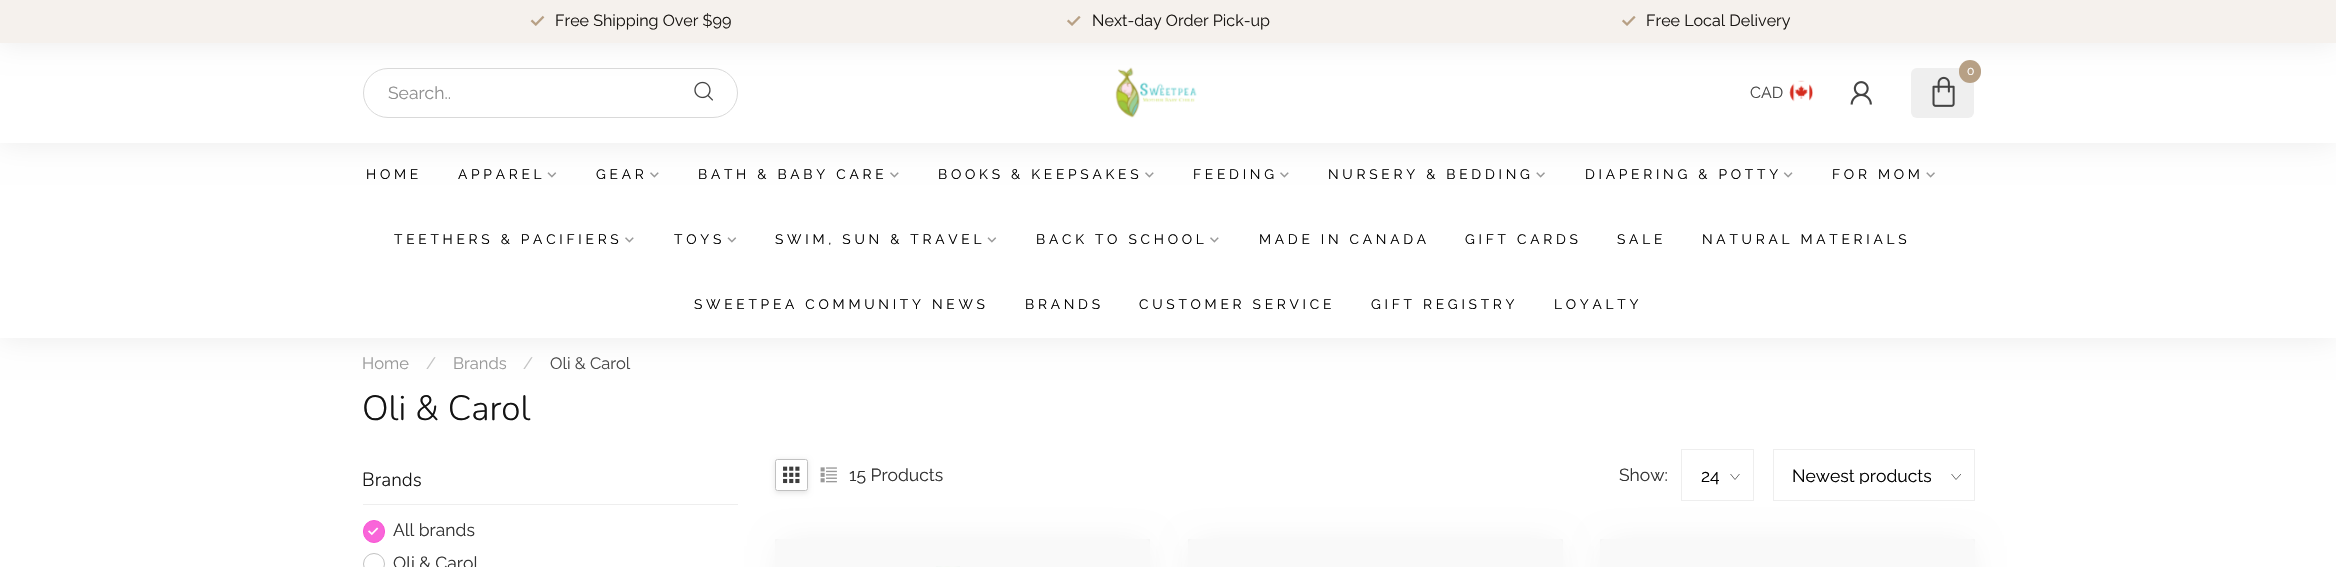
void draw(SkCanvas* canvas) {
	SkPaint paint;
	paint.setAntiAlias(true);
	auto spacedText = [&](const char* s, float x, float y, const SkFont& font, const SkPaint& ink, float letter, float word) {
		std::vector<SkGlyphID> glyphs(font.countText(s, strlen(s), SkTextEncoding::kUTF8));
		std::vector<float> xs(glyphs.size());
		font.textToGlyphs(s, strlen(s), SkTextEncoding::kUTF8, glyphs);
		font.getXPos(glyphs, xs, x);
		float extra = 0;
		for (size_t i = 0; i < glyphs.size(); i++) {
			xs[i] += extra;
			extra += letter + word * (glyphs[i] == font.unicharToGlyph(' '));
		}
		canvas->drawTextBlob(SkTextBlob::MakeFromPosHGlyphs(glyphs, xs, y, font), 0, 0, ink);
	};
	auto svgPath = [&](const char* data, bool evenOdd = false) {
		SkPath result = *SkParsePath::FromSVGString(data);
		if (evenOdd) result.setFillType(SkPathFillType::kEvenOdd);
		return result;
	};
	canvas->clear(0xffffffff);
	paint.setColor(0x14000000);
	paint.setMaskFilter(SkMaskFilter::MakeBlur(kNormal_SkBlurStyle, 14));
	canvas->drawRect(SkRect::MakeXYWH(0, 143, 2336, 195), paint);
	paint.setMaskFilter(nullptr);
	paint.setColor(0xffffffff);
	canvas->drawRect(SkRect::MakeXYWH(0, 143, 2336, 195), paint);
	canvas->drawImageRect(SkImages::DeferredFromEncodedData(SkData::MakeFromFileName("img8.png")), SkRect::MakeXYWH(547, 172, 10, 6), SkSamplingOptions());
	canvas->drawImageRect(SkImages::DeferredFromEncodedData(SkData::MakeFromFileName("img9.png")), SkRect::MakeXYWH(650, 172, 9, 6), SkSamplingOptions());
	canvas->drawImageRect(SkImages::DeferredFromEncodedData(SkData::MakeFromFileName("img9.png")), SkRect::MakeXYWH(890, 172, 9, 6), SkSamplingOptions());
	canvas->drawImageRect(SkImages::DeferredFromEncodedData(SkData::MakeFromFileName("img9.png")), SkRect::MakeXYWH(1145, 172, 9, 6), SkSamplingOptions());
	canvas->drawImageRect(SkImages::DeferredFromEncodedData(SkData::MakeFromFileName("img9.png")), SkRect::MakeXYWH(1280, 172, 9, 6), SkSamplingOptions());
	canvas->drawImageRect(SkImages::DeferredFromEncodedData(SkData::MakeFromFileName("img10.png")), SkRect::MakeXYWH(1536, 172, 9, 6), SkSamplingOptions());
	canvas->drawImageRect(SkImages::DeferredFromEncodedData(SkData::MakeFromFileName("img11.png")), SkRect::MakeXYWH(1783, 172, 10, 6), SkSamplingOptions());
	canvas->drawImageRect(SkImages::DeferredFromEncodedData(SkData::MakeFromFileName("img10.png")), SkRect::MakeXYWH(1926, 172, 9, 6), SkSamplingOptions());
	paint.setColor(0x14000000);
	paint.setMaskFilter(SkMaskFilter::MakeBlur(kNormal_SkBlurStyle, 14));
	canvas->drawRect(SkRect::MakeXYWH(0, 0, 2336, 143), paint);
	paint.setMaskFilter(nullptr);
	paint.setColor(0xffffffff);
	canvas->drawRect(SkRect::MakeXYWH(0, 43, 2336, 100), paint);
	paint.setColor(0x14000000);
	paint.setMaskFilter(SkMaskFilter::MakeBlur(kNormal_SkBlurStyle, 14));
	canvas->drawRect(SkRect::MakeXYWH(0, 0, 2336, 43), paint);
	paint.setMaskFilter(nullptr);
	paint.setColor(0xfff5f1ed);
	canvas->drawRect(SkRect::MakeXYWH(0, 0, 2336, 43), paint);
	canvas->drawImageRect(SkImages::DeferredFromEncodedData(SkData::MakeFromFileName("img1.png")), SkRect::MakeXYWH(530, 15, 15, 11), SkSamplingOptions());
	SkFont f1(fontMgr->matchFamilyStyle("Raleway", SkFontStyle::Normal()), 16.1);
	f1.setSubpixel(true);
	paint.setColor(0xff1b1815);
	canvas->drawString("Free Shipping Over $99", 555, 26, f1, paint);
	canvas->drawImageRect(SkImages::DeferredFromEncodedData(SkData::MakeFromFileName("img2.png")), SkRect::MakeXYWH(1067, 16, 14, 10), SkSamplingOptions());
	canvas->drawString("Next-day Order Pick-up", 1092, 26, f1, paint);
	canvas->drawImageRect(SkImages::DeferredFromEncodedData(SkData::MakeFromFileName("img2.png")), SkRect::MakeXYWH(1622, 16, 14, 10), SkSamplingOptions());
	canvas->drawString("Free Local Delivery", 1646, 26, f1, paint);
	paint.setStroke(true);
	paint.setStrokeWidth(1);
	paint.setColor(0xffd9d9d9);
	canvas->drawRoundRect(SkRect::MakeXYWH(363.5, 68.5, 374, 49), 24.5, 24.5, paint);
	SkFont f2(fontMgr->matchFamilyStyle("Raleway", SkFontStyle::Normal()), 17.5);
	f2.setSubpixel(true);
	paint.setStroke(false);
	paint.setColor(0xff8f8f8f);
	canvas->drawString("Search..", 388, 99, f2, paint);
	canvas->drawImageRect(SkImages::DeferredFromEncodedData(SkData::MakeFromFileName("img3.png")), SkRect::MakeXYWH(694, 81, 19, 20), SkSamplingOptions());
	canvas->drawImageRect(SkImages::DeferredFromEncodedData(SkData::MakeFromFileName("img4.png")), SkRect::MakeXYWH(1115, 67, 82, 51), SkSamplingOptions());
	paint.setColor(0xffefefef);
	canvas->drawRoundRect(SkRect::MakeXYWH(1911, 68, 63, 50), 6, 6, paint);
	paint.setColor(0xffb7a085);
	canvas->drawRoundRect(SkRect::MakeXYWH(1959, 60, 22, 23), 11, 11, paint);
	SkFont f3(fontMgr->matchFamilyStyle("Raleway", SkFontStyle::Normal()), 12);
	f3.setSubpixel(true);
	paint.setColor(0xffffffff);
	canvas->drawString("0", 1967, 75, f3, paint);
	canvas->drawImageRect(SkImages::DeferredFromEncodedData(SkData::MakeFromFileName("img5.png")), SkRect::MakeXYWH(1932, 76, 23, 31), SkSamplingOptions());
	SkFont f4(fontMgr->matchFamilyStyle("Raleway", SkFontStyle::Normal()), 16);
	f4.setSubpixel(true);
	paint.setColor(0xff474747);
	canvas->drawString("CAD", 1750, 98, f4, paint);
	canvas->drawImageRect(SkImages::DeferredFromEncodedData(SkData::MakeFromFileName("img6.png")), SkRect::MakeXYWH(1789, 80, 24, 22), SkSamplingOptions());
	canvas->drawImageRect(SkImages::DeferredFromEncodedData(SkData::MakeFromFileName("img7.png")), SkRect::MakeXYWH(1850, 81, 22, 24), SkSamplingOptions());
	SkFont f5(fontMgr->matchFamilyStyle("Raleway", SkFontStyle::Normal()), 13.75);
	f5.setSubpixel(true);
	paint.setColor(0xff000000);
	spacedText("HOME", 366, 179, f5, paint, 3.75, 0);
	spacedText("APPAREL", 458, 179, f5, paint, 3.75, 0);
	spacedText("GEAR", 596, 179, f5, paint, 3.75, 0);
	spacedText("BATH & BABY CARE", 698, 179, f5, paint, 3.75, 0);
	spacedText("BOOKS & KEEPSAKES", 938, 179, f5, paint, 3.75, 0);
	spacedText("FEEDING", 1193, 179, f5, paint, 3.75, 0);
	spacedText("NURSERY & BEDDING", 1328, 179, f5, paint, 3.75, 0);
	spacedText("DIAPERING & POTTY", 1585, 179, f5, paint, 3.75, 0);
	spacedText("FOR MOM", 1832, 179, f5, paint, 3.75, 0);
	spacedText("TEETHERS & PACIFIERS", 394, 244, f5, paint, 3.75, 0);
	canvas->drawImageRect(SkImages::DeferredFromEncodedData(SkData::MakeFromFileName("img9.png")), SkRect::MakeXYWH(625, 237, 9, 6), SkSamplingOptions());
	spacedText("TOYS", 674, 244, f5, paint, 3.75, 0);
	canvas->drawImageRect(SkImages::DeferredFromEncodedData(SkData::MakeFromFileName("img8.png")), SkRect::MakeXYWH(727, 237, 10, 6), SkSamplingOptions());
	spacedText("SWIM, SUN & TRAVEL", 775, 244, f5, paint, 3.75, 0);
	canvas->drawImageRect(SkImages::DeferredFromEncodedData(SkData::MakeFromFileName("img8.png")), SkRect::MakeXYWH(987, 237, 10, 6), SkSamplingOptions());
	spacedText("BACK TO SCHOOL", 1036, 244, f5, paint, 3.75, 0);
	canvas->drawImageRect(SkImages::DeferredFromEncodedData(SkData::MakeFromFileName("img9.png")), SkRect::MakeXYWH(1210, 237, 9, 6), SkSamplingOptions());
	spacedText("MADE IN CANADA", 1259, 244, f5, paint, 3.75, 0);
	spacedText("GIFT CARDS", 1465, 244, f5, paint, 3.75, 0);
	spacedText("SALE", 1617, 244, f5, paint, 3.75, 0);
	spacedText("NATURAL MATERIALS", 1702, 244, f5, paint, 3.75, 0);
	spacedText("SWEETPEA COMMUNITY NEWS", 694, 309, f5, paint, 3.75, 0);
	spacedText("BRANDS", 1025, 309, f5, paint, 3.75, 0);
	spacedText("CUSTOMER SERVICE", 1139, 309, f5, paint, 3.75, 0);
	spacedText("GIFT REGISTRY", 1371, 309, f5, paint, 3.75, 0);
	spacedText("LOYALTY", 1554, 309, f5, paint, 3.75, 0);
	SkFont f6(fontMgr->matchFamilyStyle("Raleway", SkFontStyle::Normal()), 16.5);
	f6.setSubpixel(true);
	paint.setColor(0xff999999);
	canvas->drawString("Home", 362, 369, f6, paint);
	paint.setColor(0xffc2c2c2);
	canvas->drawString("/", 426, 369, f6, paint);
	paint.setColor(0xff999999);
	canvas->drawString("Brands", 453, 369, f6, paint);
	paint.setColor(0xffc2c2c2);
	canvas->drawString("/", 523, 369, f6, paint);
	paint.setColor(0xff474747);
	canvas->drawString("Oli & Carol", 550, 369, f6, paint);
	SkFont f7(fontMgr->matchFamilyStyle("Nunito", SkFontStyle(300, SkFontStyle::kNormal_Width, SkFontStyle::kUpright_Slant)), 35);
	f7.setSubpixel(true);
	paint.setColor(0xff131313);
	canvas->drawString("Oli & Carol", 362, 420, f7, paint);
	paint.setColor(0xffeeeeee);
	canvas->drawRect(SkRect::MakeXYWH(363, 504, 375, 1), paint);
	SkFont f8(fontMgr->matchFamilyStyle("Nunito", SkFontStyle(300, SkFontStyle::kNormal_Width, SkFontStyle::kUpright_Slant)), 19);
	f8.setSubpixel(true);
	paint.setColor(0xff131313);
	canvas->drawString("Brands", 362, 486, f8, paint);
	paint.setColor(0xfff965d9);
	canvas->drawRoundRect(SkRect::MakeXYWH(363.5, 520.5, 21, 22), 10.5, 10.5, paint);
	paint.setStroke(true);
	paint.setColor(0xfff954d5);
	canvas->drawRoundRect(SkRect::MakeXYWH(363.5, 520.5, 21, 22), 10.5, 10.5, paint);
	canvas->drawImageRect(SkImages::DeferredFromEncodedData(SkData::MakeFromFileName("img12.png")), SkRect::MakeXYWH(368, 527, 11, 9), SkSamplingOptions());
	paint.setStroke(false);
	paint.setColor(0xff333333);
	canvas->drawString("All brands", 393, 536, f2, paint);
	paint.setStroke(true);
	paint.setColor(0xffc1c1c1);
	canvas->drawCircle(374, 564, 10.5, paint);
	paint.setStroke(false);
	paint.setColor(0xff333333);
	canvas->drawString("Oli & Carol", 393, 569, f2, paint);
	canvas->save();
	canvas->clipPath(svgPath("M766 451H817V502H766ZM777.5 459H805.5C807 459 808 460 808 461.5V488.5C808 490 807 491 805.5 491H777.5C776 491 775 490 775 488.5V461.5C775 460 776 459 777.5 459Z", true), true);
	paint.setColor(0x1a000000);
	paint.setMaskFilter(SkMaskFilter::MakeBlur(kNormal_SkBlurStyle, 2.5));
	canvas->drawRoundRect(SkRect::MakeXYWH(775, 460, 33, 33), 2.5, 2.5, paint);
	paint.setMaskFilter(nullptr);
	canvas->restore();
	paint.setStroke(true);
	paint.setColor(0xffc1c1c1);
	canvas->drawRoundRect(SkRect::MakeXYWH(775.5, 459.5, 32, 31), 2, 2, paint);
	canvas->drawImageRect(SkImages::DeferredFromEncodedData(SkData::MakeFromFileName("img13.png")), SkRect::MakeXYWH(783, 466, 17, 18), SkSamplingOptions());
	canvas->drawImageRect(SkImages::DeferredFromEncodedData(SkData::MakeFromFileName("img14.png")), SkRect::MakeXYWH(820, 467, 17, 16), SkSamplingOptions());
	paint.setStroke(false);
	paint.setColor(0xff333333);
	canvas->drawString("15 Products", 849, 481, f2, paint);
	canvas->drawString("Show:", 1619, 481, f2, paint);
	paint.setStroke(true);
	paint.setStrokeWidth(0.9);
	paint.setColor(0xff595959);
	canvas->drawPath(svgPath("M1739.5 474L1735 479.5L1730.5 474"), paint);
	paint.setStrokeWidth(1);
	paint.setColor(0xffeeeeee);
	canvas->drawRect(SkRect::MakeXYWH(1681.5, 449.5, 72, 51), paint);
	paint.setStroke(false);
	paint.setColor(0xff000000);
	canvas->drawString("24", 1701, 482, f2, paint);
	canvas->save();
	canvas->clipRect(SkRect::MakeXYWH(1951, 474, 10, 6));
	paint.setStroke(true);
	paint.setStrokeWidth(0.9);
	paint.setColor(0xff595959);
	canvas->drawPath(svgPath("M1961 474L1956 479.5L1951.5 474"), paint);
	canvas->restore();
	paint.setStrokeWidth(1);
	paint.setColor(0xffeeeeee);
	canvas->drawRect(SkRect::MakeXYWH(1773.5, 449.5, 201, 51), paint);
	canvas->save();
	canvas->clipRect(SkRect::MakeXYWH(1793, 466, 150, 18));
	paint.setStroke(false);
	paint.setColor(0xff000000);
	canvas->drawString("Newest products", 1792, 482, f2, paint);
	canvas->restore();
	paint.setColor(0x12000000);
	paint.setMaskFilter(SkMaskFilter::MakeBlur(kNormal_SkBlurStyle, 16));
	canvas->drawRect(SkRect::MakeXYWH(783, 546, 360, 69), paint);
	paint.setMaskFilter(nullptr);
	paint.setColor(0xffffffff);
	canvas->drawPath(svgPath("M780 539H1145C1148 539 1150 541 1150 544V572H775V544C775 541 777 539 780 539Z"), paint);
	canvas->drawImageRect(SkImages::DeferredFromEncodedData(SkData::MakeFromFileName("img15.png")), SkRect::MakeXYWH(936, 566, 24, 1), SkSamplingOptions());
	paint.setColor(0x0f9b9b9b);
	canvas->drawRect(SkRect::MakeXYWH(775, 539, 375, 28), paint);
	paint.setColor(0x12000000);
	paint.setMaskFilter(SkMaskFilter::MakeBlur(kNormal_SkBlurStyle, 16));
	canvas->drawRect(SkRect::MakeXYWH(1195, 546, 360, 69), paint);
	paint.setMaskFilter(nullptr);
	paint.setColor(0xffffffff);
	canvas->drawPath(svgPath("M1193 539H1558C1561 539 1563 541 1563 544V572H1188V544C1188 541 1190 539 1193 539Z"), paint);
	paint.setColor(0x0f9b9b9b);
	canvas->drawRect(SkRect::MakeXYWH(1188, 539, 375, 28), paint);
	paint.setColor(0x12000000);
	paint.setMaskFilter(SkMaskFilter::MakeBlur(kNormal_SkBlurStyle, 16));
	canvas->drawRect(SkRect::MakeXYWH(1608, 546, 360, 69), paint);
	paint.setMaskFilter(nullptr);
	paint.setColor(0xffffffff);
	canvas->drawPath(svgPath("M1605 539H1970C1973 539 1975 541 1975 544V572H1600V544C1600 541 1602 539 1605 539Z"), paint);
	paint.setColor(0x0f9b9b9b);
	canvas->drawRect(SkRect::MakeXYWH(1600, 539, 375, 28), paint);
}
